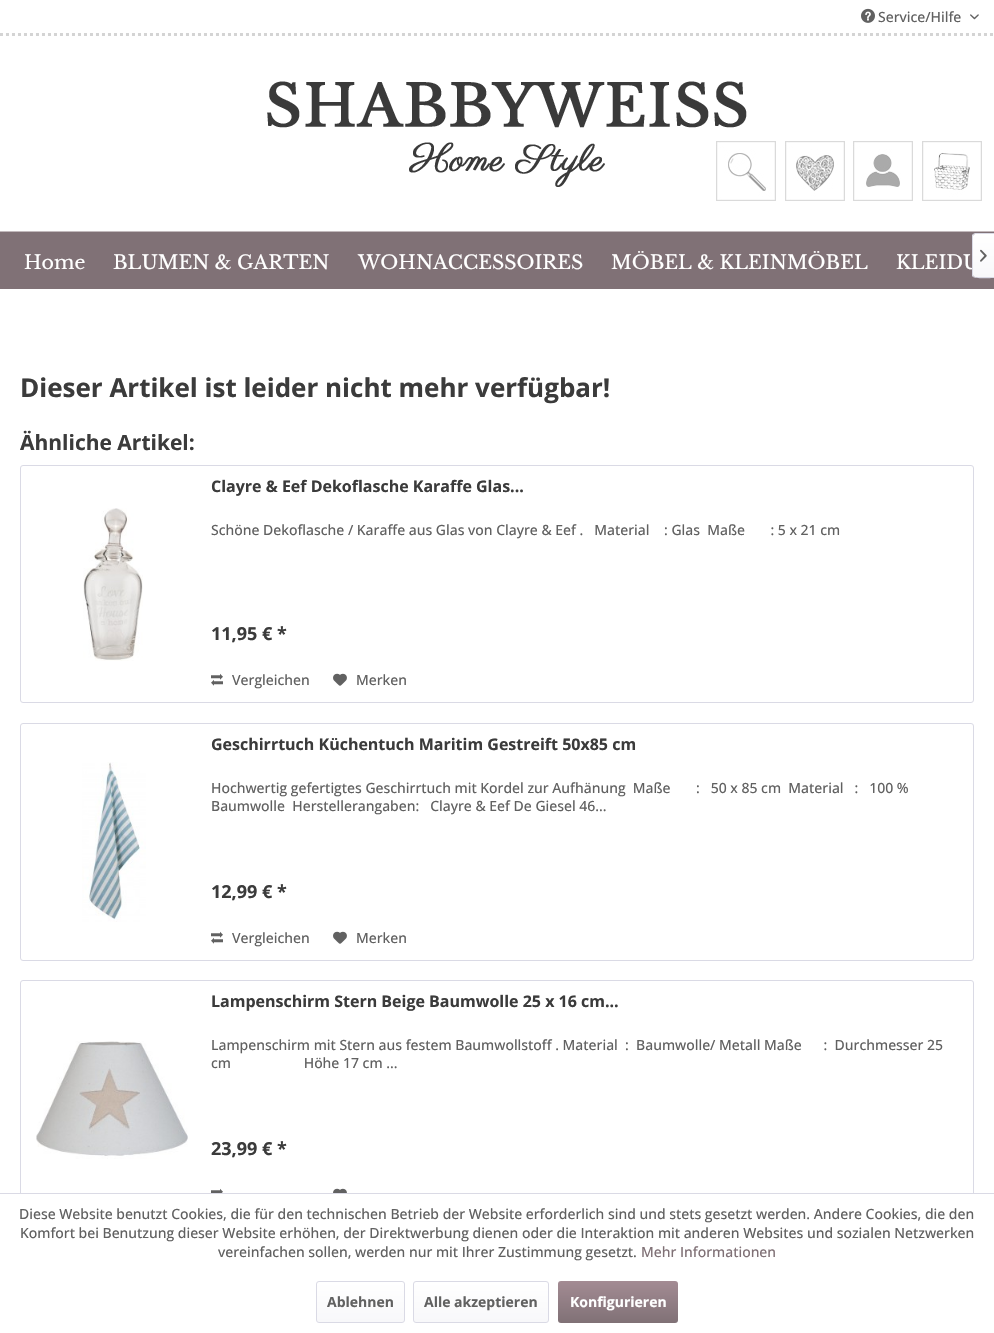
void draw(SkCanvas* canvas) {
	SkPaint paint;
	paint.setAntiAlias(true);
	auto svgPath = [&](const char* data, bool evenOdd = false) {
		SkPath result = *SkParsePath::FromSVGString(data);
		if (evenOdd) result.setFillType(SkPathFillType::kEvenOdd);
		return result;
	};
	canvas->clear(0xffffffff);
	paint.setStroke(true);
	paint.setStrokeWidth(3);
	paint.setColor(0xffd4d4d4);
	paint.setPathEffect(SkDashPathEffect::Make({{3, 3}}, 0));
	canvas->drawPath(svgPath("M0 34.5H994"), paint);
	paint.setPathEffect(nullptr);
	canvas->drawImageRect(SkImages::DeferredFromEncodedData(SkData::MakeFromFileName("img1.png")), SkRect::MakeXYWH(861, 8, 14, 15), SkSamplingOptions());
	SkFont f1(fontMgr->matchFamilyStyle("Open Sans", SkFontStyle(500, SkFontStyle::kNormal_Width, SkFontStyle::kUpright_Slant)), 14);
	f1.setSubpixel(true);
	paint.setStroke(false);
	paint.setColor(0xff616161);
	canvas->drawString("Service/Hilfe", 878, 22, f1, paint);
	canvas->drawImageRect(SkImages::DeferredFromEncodedData(SkData::MakeFromFileName("img2.png")), SkRect::MakeXYWH(970, 14, 9, 6), SkSamplingOptions());
	canvas->drawImageRect(SkImages::DeferredFromEncodedData(SkData::MakeFromFileName("img3.png")), SkRect::MakeXYWH(267, 81, 480, 106), SkSamplingOptions());
	canvas->drawImageRect(SkImages::DeferredFromEncodedData(SkData::MakeFromFileName("img4.png")), SkRect::MakeXYWH(716, 141, 60, 60), SkSamplingOptions());
	canvas->drawImageRect(SkImages::DeferredFromEncodedData(SkData::MakeFromFileName("img5.png")), SkRect::MakeXYWH(785, 141, 60, 60), SkSamplingOptions());
	canvas->drawImageRect(SkImages::DeferredFromEncodedData(SkData::MakeFromFileName("img6.png")), SkRect::MakeXYWH(853, 141, 60, 60), SkSamplingOptions());
	canvas->drawImageRect(SkImages::DeferredFromEncodedData(SkData::MakeFromFileName("img7.png")), SkRect::MakeXYWH(922, 141, 60, 60), SkSamplingOptions());
	paint.setColor(0xff807176);
	canvas->drawRect(SkRect::MakeXYWH(0, 232, 994, 57), paint);
	paint.setColor(0xffc2b9bc);
	canvas->drawRect(SkRect::MakeXYWH(0, 231, 994, 1), paint);
	SkFont f2(fontMgr->matchFamilyStyle("Libre Baskerville", SkFontStyle::Normal()), 19);
	f2.setSubpixel(true);
	paint.setColor(0xffffffff);
	canvas->drawString("Home", 24, 269, f2, paint);
	canvas->drawString("BLUMEN & GARTEN", 113, 269, f2, paint);
	canvas->drawString("WOHNACCESSOIRES", 358, 269, f2, paint);
	canvas->drawString("MÖBEL & KLEINMÖBEL", 611, 269, f2, paint);
	canvas->drawString("KLEIDU", 896, 269, f2, paint);
	{
		const SkColor colors[] = {0xffffffff, 0xfff8f8fa};
		const float stops[] = {0, 1};
		const SkPoint ends[] = {{984, 234}, {984, 277}};
		paint.setShader(SkGradientShader::MakeLinear(ends, colors, stops, 2, SkTileMode::kClamp));
		paint.setAlpha(255);
	}
	canvas->drawPath(svgPath("M975 234H994V277H975C974 277 973 276 973 275V236C973 235 974 234 975 234Z"), paint);
	paint.setShader(nullptr);
	paint.setColor(0xffdadae5);
	canvas->drawPath(svgPath("M975 233H994V278C991 278 975 279 973 277L972 276V235L973 234ZM975 234H994V277H975C974 277 973 276 973 275V236C973 235 974 234 975 234Z", true), paint);
	canvas->drawImageRect(SkImages::DeferredFromEncodedData(SkData::MakeFromFileName("img8.png")), SkRect::MakeXYWH(980, 249, 7, 13), SkSamplingOptions());
	SkFont f3(fontMgr->matchFamilyStyle("Open Sans", SkFontStyle::Bold()), 26);
	f3.setSubpixel(true);
	paint.setColor(0xff3b3b3b);
	canvas->drawString("Dieser Artikel ist leider nicht mehr verfügbar!", 20, 397, f3, paint);
	SkFont f4(fontMgr->matchFamilyStyle("Open Sans", SkFontStyle::Bold()), 21);
	f4.setSubpixel(true);
	canvas->drawString("Ähnliche Artikel:", 20, 450, f4, paint);
	paint.setStroke(true);
	paint.setStrokeWidth(1);
	paint.setColor(0xffdadae5);
	canvas->drawRoundRect(SkRect::MakeXYWH(20.5, 465.5, 953, 237), 2.5, 2.5, paint);
	SkFont f5(fontMgr->matchFamilyStyle("Open Sans", SkFontStyle::Bold()), 16);
	f5.setSubpixel(true);
	paint.setStroke(false);
	paint.setColor(0xff3b3b3b);
	canvas->drawString("Clayre & Eef Dekoflasche Karaffe Glas...", 211, 492, f5, paint);
	canvas->drawImageRect(SkImages::DeferredFromEncodedData(SkData::MakeFromFileName("img9.png")), SkRect::MakeXYWH(83, 508, 60, 153), SkSamplingOptions());
	paint.setColor(0xff616161);
	canvas->drawString("Schöne Dekoflasche / Karaffe aus Glas von Clayre & Eef .   Material    : Glas  Maße       : 5 x 21 cm", 211, 535, f1, paint);
	SkFont f6(fontMgr->matchFamilyStyle("Open Sans", SkFontStyle::Bold()), 18);
	f6.setSubpixel(true);
	paint.setColor(0xff3b3b3b);
	canvas->drawString("11,95 € *", 211, 640, f6, paint);
	canvas->drawImageRect(SkImages::DeferredFromEncodedData(SkData::MakeFromFileName("img10.png")), SkRect::MakeXYWH(211, 673, 12, 13), SkSamplingOptions());
	paint.setColor(0xff616161);
	canvas->drawString("Vergleichen", 232, 685, f1, paint);
	canvas->drawImageRect(SkImages::DeferredFromEncodedData(SkData::MakeFromFileName("img11.png")), SkRect::MakeXYWH(333, 673, 14, 13), SkSamplingOptions());
	canvas->drawString("Merken", 356, 685, f1, paint);
	paint.setStroke(true);
	paint.setColor(0xffdadae5);
	canvas->drawRoundRect(SkRect::MakeXYWH(20.5, 723.5, 953, 237), 2.5, 2.5, paint);
	paint.setStroke(false);
	paint.setColor(0xff3b3b3b);
	canvas->drawString("Geschirrtuch Küchentuch Maritim Gestreift 50x85 cm", 211, 750, f5, paint);
	canvas->drawImageRect(SkImages::DeferredFromEncodedData(SkData::MakeFromFileName("img12.png")), SkRect::MakeXYWH(82, 762, 64, 160), SkSamplingOptions());
	paint.setColor(0xff616161);
	canvas->drawString("Hochwertig gefertigtes Geschirrtuch mit Kordel zur Aufhänung  Maße       :   50 x 85 cm  Material   :   100 %", 211, 793, f1, paint);
	canvas->drawString("Baumwolle  Herstellerangaben:   Clayre & Eef De Giesel 46...", 211, 811, f1, paint);
	paint.setColor(0xff3b3b3b);
	canvas->drawString("12,99 € *", 211, 898, f6, paint);
	canvas->drawImageRect(SkImages::DeferredFromEncodedData(SkData::MakeFromFileName("img10.png")), SkRect::MakeXYWH(211, 931, 12, 13), SkSamplingOptions());
	paint.setColor(0xff616161);
	canvas->drawString("Vergleichen", 232, 943, f1, paint);
	canvas->drawImageRect(SkImages::DeferredFromEncodedData(SkData::MakeFromFileName("img11.png")), SkRect::MakeXYWH(333, 931, 14, 13), SkSamplingOptions());
	canvas->drawString("Merken", 356, 943, f1, paint);
	paint.setStroke(true);
	paint.setColor(0xffdadae5);
	canvas->drawRoundRect(SkRect::MakeXYWH(20.5, 980.5, 953, 237), 2.5, 2.5, paint);
	paint.setStroke(false);
	paint.setColor(0xff3b3b3b);
	canvas->drawString("Lampenschirm Stern Beige Baumwolle 25 x 16 cm...", 211, 1007, f5, paint);
	canvas->drawImageRect(SkImages::DeferredFromEncodedData(SkData::MakeFromFileName("img13.png")), SkRect::MakeXYWH(36, 1041, 152, 118), SkSamplingOptions());
	paint.setColor(0xff616161);
	canvas->drawString("Lampenschirm mit Stern aus festem Baumwollstoff . Material  :  Baumwolle/ Metall Maße      :  Durchmesser 25", 211, 1050, f1, paint);
	canvas->drawString("cm                    Höhe 17 cm ...", 211, 1068, f1, paint);
	paint.setColor(0xff3b3b3b);
	canvas->drawString("23,99 € *", 211, 1155, f6, paint);
	canvas->drawImageRect(SkImages::DeferredFromEncodedData(SkData::MakeFromFileName("img14.png")), SkRect::MakeXYWH(211, 1188, 12, 5), SkSamplingOptions());
	canvas->drawImageRect(SkImages::DeferredFromEncodedData(SkData::MakeFromFileName("img15.png")), SkRect::MakeXYWH(333, 1188, 14, 5), SkSamplingOptions());
	paint.setColor(0xffffffff);
	canvas->drawRect(SkRect::MakeXYWH(20, 1194, 954, 24), paint);
	paint.setColor(0xffdadae5);
	canvas->drawRect(SkRect::MakeXYWH(0, 1193, 994, 1), paint);
	paint.setColor(0xff616161);
	canvas->drawString("Diese Website benutzt Cookies, die für den technischen Betrieb der Website erforderlich sind und stets gesetzt werden. Andere Cookies, die den", 19, 1219, f1, paint);
	canvas->drawString("Komfort bei Benutzung dieser Website erhöhen, der Direktwerbung dienen oder die Interaktion mit anderen Websites und sozialen Netzwerken", 20, 1238, f1, paint);
	canvas->drawString("vereinfachen sollen, werden nur mit Ihrer Zustimmung gesetzt.", 218, 1257, f1, paint);
	paint.setColor(0xff807176);
	canvas->drawString("Mehr Informationen", 641, 1257, f1, paint);
	{
		const SkColor colors[] = {0xffffffff, 0xfff8f8fa};
		const float stops[] = {0, 1};
		const SkPoint ends[] = {{361, 1282}, {361, 1322}};
		paint.setShader(SkGradientShader::MakeLinear(ends, colors, stops, 2, SkTileMode::kClamp));
		paint.setAlpha(255);
	}
	canvas->drawRoundRect(SkRect::MakeXYWH(317, 1282, 87, 40), 2, 2, paint);
	paint.setStroke(true);
	paint.setShader(nullptr);
	paint.setColor(0xffdadae5);
	canvas->drawRoundRect(SkRect::MakeXYWH(316.5, 1281.5, 88, 41), 2.5, 2.5, paint);
	SkFont f7(fontMgr->matchFamilyStyle("Open Sans", SkFontStyle::Bold()), 14);
	f7.setSubpixel(true);
	paint.setStroke(false);
	paint.setColor(0xff616161);
	canvas->drawString("Ablehnen", 327, 1307, f7, paint);
	{
		const SkColor colors[] = {0xffffffff, 0xfff8f8fa};
		const float stops[] = {0, 1};
		const SkPoint ends[] = {{481, 1282}, {481, 1322}};
		paint.setShader(SkGradientShader::MakeLinear(ends, colors, stops, 2, SkTileMode::kClamp));
		paint.setAlpha(255);
	}
	canvas->drawRoundRect(SkRect::MakeXYWH(414, 1282, 134, 40), 2, 2, paint);
	paint.setStroke(true);
	paint.setShader(nullptr);
	paint.setColor(0xffdadae5);
	canvas->drawRoundRect(SkRect::MakeXYWH(413.5, 1281.5, 135, 41), 2.5, 2.5, paint);
	paint.setStroke(false);
	paint.setColor(0xff616161);
	canvas->drawString("Alle akzeptieren", 424, 1307, f7, paint);
	{
		const SkColor colors[] = {0xffa38b93, 0xff807176};
		const float stops[] = {0, 1};
		const SkPoint ends[] = {{618, 1281}, {618, 1323}};
		paint.setShader(SkGradientShader::MakeLinear(ends, colors, stops, 2, SkTileMode::kClamp));
		paint.setAlpha(255);
	}
	canvas->drawRoundRect(SkRect::MakeXYWH(558, 1281, 120, 42), 3, 3, paint);
	paint.setShader(nullptr);
	paint.setColor(0xffffffff);
	canvas->drawString("Konfigurieren", 570, 1307, f7, paint);
}
